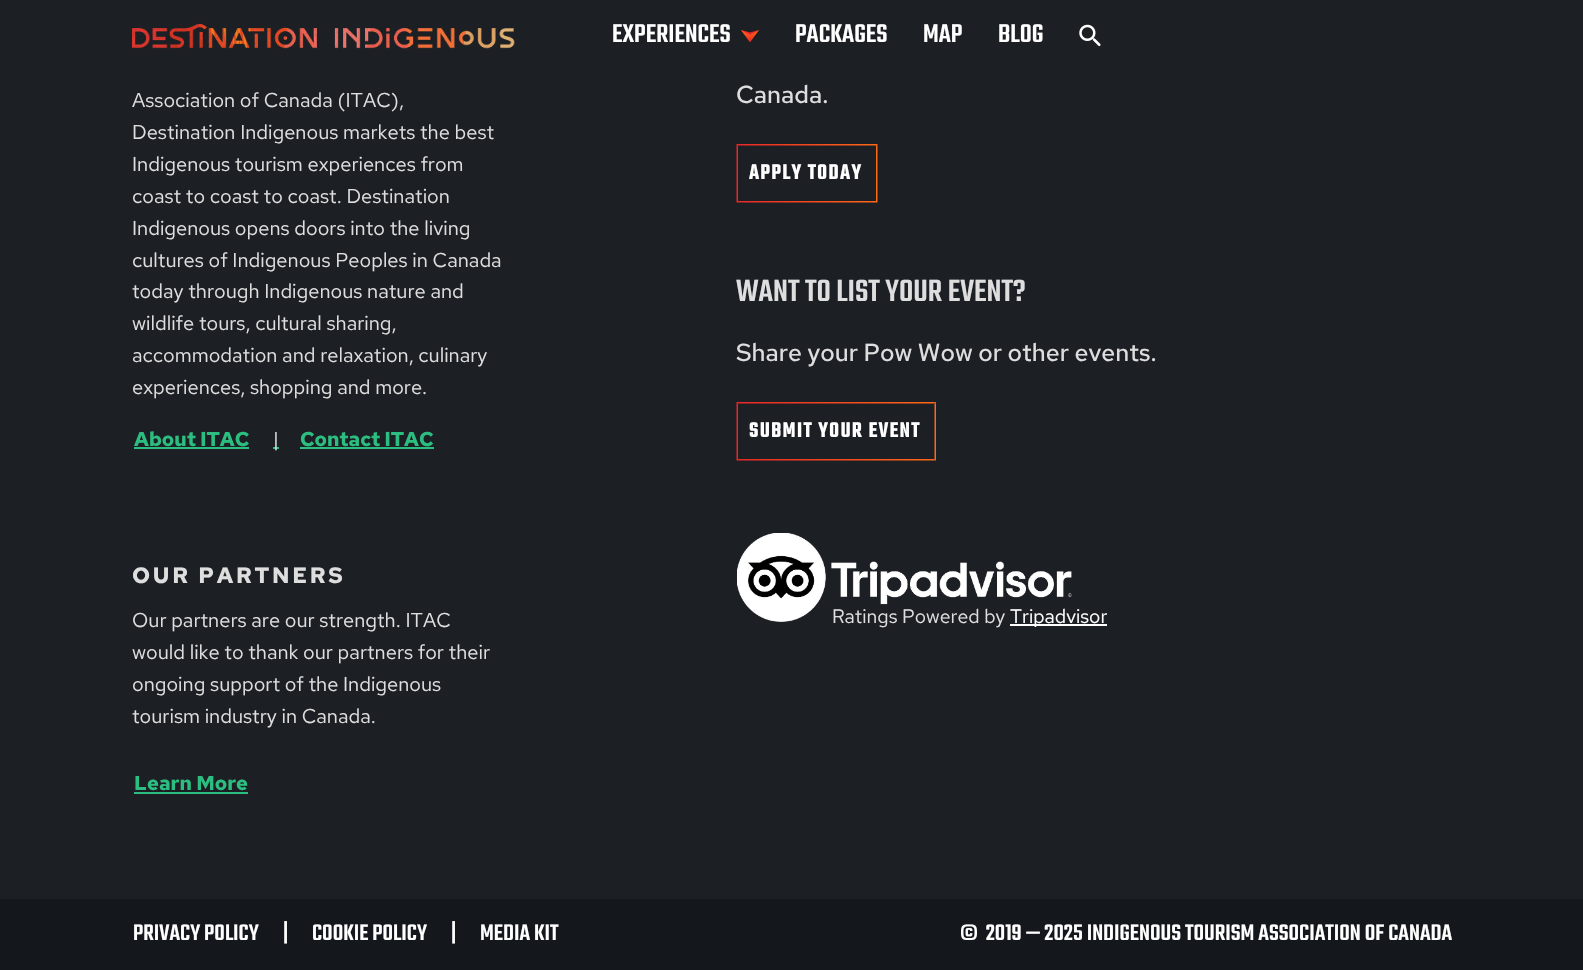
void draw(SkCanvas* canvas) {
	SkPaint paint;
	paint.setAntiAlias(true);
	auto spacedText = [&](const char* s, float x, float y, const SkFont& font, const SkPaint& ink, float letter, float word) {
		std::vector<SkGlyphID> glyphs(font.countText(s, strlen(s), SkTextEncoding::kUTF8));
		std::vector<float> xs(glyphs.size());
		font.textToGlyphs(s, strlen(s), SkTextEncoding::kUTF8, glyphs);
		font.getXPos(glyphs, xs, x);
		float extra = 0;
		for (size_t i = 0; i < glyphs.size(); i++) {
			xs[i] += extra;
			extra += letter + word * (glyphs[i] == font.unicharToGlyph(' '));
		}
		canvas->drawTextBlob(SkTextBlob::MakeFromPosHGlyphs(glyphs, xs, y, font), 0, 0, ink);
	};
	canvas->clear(0xff1c2024);
	canvas->drawImageRect(SkImages::DeferredFromEncodedData(SkData::MakeFromFileName("img1.png")), SkRect::MakeXYWH(132, 23, 383, 26), SkSamplingOptions());
	SkFont f1(fontMgr->matchFamilyStyle("Teko", SkFontStyle(500, SkFontStyle::kNormal_Width, SkFontStyle::kUpright_Slant)), 28);
	f1.setSubpixel(true);
	paint.setColor(0xffffffff);
	canvas->drawString("EXPERIENCES", 612, 42, f1, paint);
	canvas->drawImageRect(SkImages::DeferredFromEncodedData(SkData::MakeFromFileName("img2.png")), SkRect::MakeXYWH(741, 30, 18, 12), SkSamplingOptions());
	canvas->drawString("PACKAGES", 795, 42, f1, paint);
	canvas->drawString("MAP", 923, 42, f1, paint);
	canvas->drawString("BLOG", 998, 42, f1, paint);
	canvas->drawImageRect(SkImages::DeferredFromEncodedData(SkData::MakeFromFileName("img3.png")), SkRect::MakeXYWH(1079, 24, 22, 23), SkSamplingOptions());
	SkFont f2(fontMgr->matchFamilyStyle("Red Hat Text", SkFontStyle::Normal()), 20.1);
	f2.setSubpixel(true);
	paint.setColor(0xffdedede);
	canvas->drawString("Association of Canada (ITAC),", 132, 107, f2, paint);
	canvas->drawString("Destination Indigenous markets the best", 132, 139, f2, paint);
	canvas->drawString("Indigenous tourism experiences from", 132, 171, f2, paint);
	canvas->drawString("coast to coast to coast. Destination", 132, 203, f2, paint);
	canvas->drawString("Indigenous opens doors into the living", 132, 235, f2, paint);
	canvas->drawString("cultures of Indigenous Peoples in Canada", 132, 267, f2, paint);
	canvas->drawString("today through Indigenous nature and", 132, 298, f2, paint);
	canvas->drawString("wildlife tours, cultural sharing,", 132, 330, f2, paint);
	canvas->drawString("accommodation and relaxation, culinary", 132, 362, f2, paint);
	canvas->drawString("experiences, shopping and more.", 132, 394, f2, paint);
	SkFont f3(fontMgr->matchFamilyStyle("Red Hat Text", SkFontStyle::Bold()), 20.1);
	f3.setSubpixel(true);
	paint.setColor(0xff2cbe80);
	canvas->drawString("About ITAC", 134, 446, f3, paint);
	canvas->drawRect(SkRect::MakeXYWH(134, 447, 115, 2), paint);
	canvas->drawRect(SkRect::MakeXYWH(273, 447, 6, 2), paint);
	paint.setColor(0xffdedede);
	canvas->drawString("|", 273, 446, f2, paint);
	paint.setColor(0xff2cbe80);
	canvas->drawString("Contact ITAC", 300, 446, f3, paint);
	canvas->drawRect(SkRect::MakeXYWH(300, 447, 134, 2), paint);
	SkFont f4(fontMgr->matchFamilyStyle("Red Hat Text", SkFontStyle::Bold()), 22.25);
	f4.setSubpixel(true);
	paint.setColor(0xffdedede);
	spacedText("OUR PARTNERS", 132, 583, f4, paint, 2.75, 0);
	canvas->drawString("Our partners are our strength. ITAC", 132, 627, f2, paint);
	canvas->drawString("would like to thank our partners for their", 132, 659, f2, paint);
	canvas->drawString("ongoing support of the Indigenous", 132, 691, f2, paint);
	canvas->drawString("tourism industry in Canada.", 132, 723, f2, paint);
	paint.setColor(0xff2cbe80);
	canvas->drawString("Learn More", 134, 790, f3, paint);
	canvas->drawRect(SkRect::MakeXYWH(134, 792, 114, 2), paint);
	SkFont f5(fontMgr->matchFamilyStyle("Red Hat Text", SkFontStyle(500, SkFontStyle::kNormal_Width, SkFontStyle::kUpright_Slant)), 24.6);
	f5.setSubpixel(true);
	paint.setColor(0xffdedede);
	canvas->drawString("Canada.", 736, 103, f5, paint);
	canvas->drawImageRect(SkImages::DeferredFromEncodedData(SkData::MakeFromFileName("img4.png")), SkRect::MakeXYWH(736, 144, 142, 59), SkSamplingOptions());
	SkFont f6(fontMgr->matchFamilyStyle("Teko", SkFontStyle::Bold()), 22.25);
	f6.setSubpixel(true);
	paint.setColor(0xffffffff);
	spacedText("APPLY TODAY", 749, 179, f6, paint, 1.75, 0);
	SkFont f7(fontMgr->matchFamilyStyle("Teko", SkFontStyle(500, SkFontStyle::kNormal_Width, SkFontStyle::kUpright_Slant)), 33.5);
	f7.setSubpixel(true);
	paint.setColor(0xffdedede);
	canvas->drawString("WANT TO LIST YOUR EVENT?", 736, 301, f7, paint);
	canvas->drawString("Share your Pow Wow or other events.", 736, 361, f5, paint);
	canvas->drawImageRect(SkImages::DeferredFromEncodedData(SkData::MakeFromFileName("img5.png")), SkRect::MakeXYWH(736, 402, 200, 59), SkSamplingOptions());
	paint.setColor(0xffffffff);
	spacedText("SUBMIT YOUR EVENT", 749, 437, f6, paint, 1.75, 0);
	canvas->drawImageRect(SkImages::DeferredFromEncodedData(SkData::MakeFromFileName("img6.png")), SkRect::MakeXYWH(737, 533, 335, 89), SkSamplingOptions());
	SkFont f8(fontMgr->matchFamilyStyle("Red Hat Text", SkFontStyle::Normal()), 19.5);
	f8.setSubpixel(true);
	paint.setColor(0xffdedede);
	canvas->drawString("Ratings Powered by", 832, 623, f8, paint);
	paint.setColor(0xffffffff);
	canvas->drawRect(SkRect::MakeXYWH(1010, 624, 97, 2), paint);
	canvas->drawString("Tripadvisor", 1010, 623, f8, paint);
	paint.setColor(0xff14181c);
	canvas->drawRect(SkRect::MakeXYWH(0, 899, 1583, 71), paint);
	SkFont f9(fontMgr->matchFamilyStyle("Teko", SkFontStyle(500, SkFontStyle::kNormal_Width, SkFontStyle::kUpright_Slant)), 24.6);
	f9.setSubpixel(true);
	paint.setColor(0xffffffff);
	canvas->drawString("PRIVACY POLICY", 133, 940, f9, paint);
	canvas->drawString("|", 283, 940, f9, paint);
	canvas->drawString("COOKIE POLICY", 312, 940, f9, paint);
	canvas->drawString("|", 451, 940, f9, paint);
	canvas->drawString("MEDIA KIT", 480, 940, f9, paint);
	canvas->drawString("©  2019 — 2025 INDIGENOUS TOURISM ASSOCIATION OF CANADA", 960, 940, f9, paint);
}
